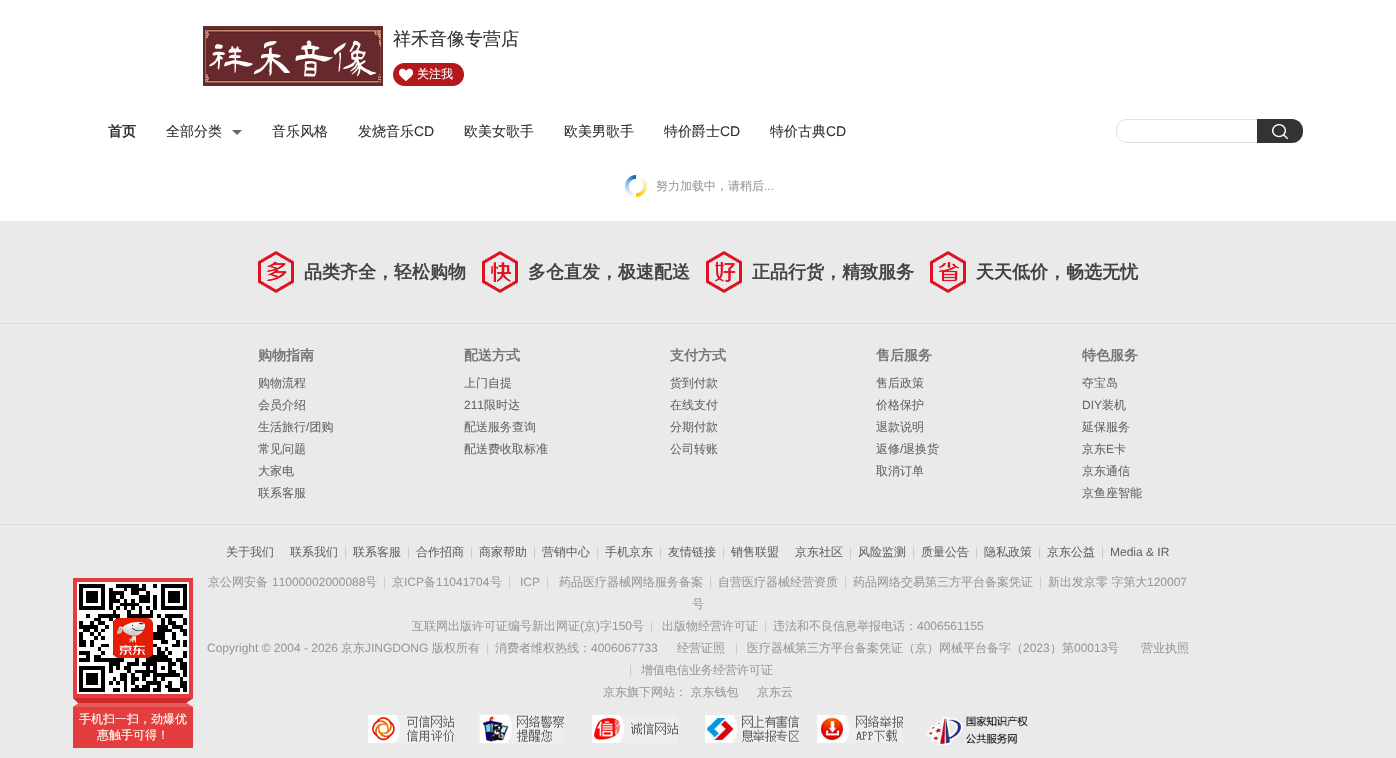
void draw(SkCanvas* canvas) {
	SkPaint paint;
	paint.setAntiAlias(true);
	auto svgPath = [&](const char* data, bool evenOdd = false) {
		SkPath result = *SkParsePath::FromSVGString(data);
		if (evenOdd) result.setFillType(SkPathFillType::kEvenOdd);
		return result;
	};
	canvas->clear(0xffffffff);
	canvas->drawImageRect(SkImages::DeferredFromEncodedData(SkData::MakeFromFileName("img1.png")), SkRect::MakeXYWH(203, 26, 180, 60), SkSamplingOptions());
	SkFont f1(fontMgr->matchFamilyStyle("WenQuanYi Zen Hei", SkFontStyle(500, SkFontStyle::kNormal_Width, SkFontStyle::kUpright_Slant)), 18);
	f1.setSubpixel(true);
	paint.setColor(0xff333333);
	canvas->drawString("祥禾音像专营店", 393, 45, f1, paint);
	canvas->drawImageRect(SkImages::DeferredFromEncodedData(SkData::MakeFromFileName("img2.png")), SkRect::MakeXYWH(393, 63, 71, 23), SkSamplingOptions());
	SkFont f2(fontMgr->matchFamilyStyle("WenQuanYi Zen Hei", SkFontStyle(500, SkFontStyle::kNormal_Width, SkFontStyle::kUpright_Slant)), 12);
	f2.setSubpixel(true);
	paint.setColor(0xffffffff);
	canvas->drawString("关注我", 417, 78, f2, paint);
	SkFont f3(fontMgr->matchFamilyStyle("WenQuanYi Zen Hei", SkFontStyle::Bold()), 14);
	f3.setSubpixel(true);
	paint.setColor(0xff333333);
	canvas->drawString("首页", 108, 136, f3, paint);
	SkFont f4(fontMgr->matchFamilyStyle("WenQuanYi Zen Hei", SkFontStyle(500, SkFontStyle::kNormal_Width, SkFontStyle::kUpright_Slant)), 14);
	f4.setSubpixel(true);
	canvas->drawString("全部分类", 166, 136, f4, paint);
	paint.setColor(0xff666666);
	canvas->drawPath(svgPath("M232 130H242L237 135Z"), paint);
	paint.setColor(0xff333333);
	canvas->drawString("音乐风格", 272, 136, f4, paint);
	canvas->drawString("发烧音乐", 358, 136, f4, paint);
	SkFont f5(fontMgr->matchFamilyStyle("Liberation Sans", SkFontStyle::Normal()), 14);
	f5.setSubpixel(true);
	canvas->drawString("CD", 414, 136, f5, paint);
	canvas->drawString("欧美女歌手", 464, 136, f4, paint);
	canvas->drawString("欧美男歌手", 564, 136, f4, paint);
	canvas->drawString("特价爵士", 664, 136, f4, paint);
	canvas->drawString("CD", 720, 136, f5, paint);
	canvas->drawString("特价古典", 770, 136, f4, paint);
	canvas->drawString("CD", 826, 136, f5, paint);
	paint.setStroke(true);
	paint.setStrokeWidth(1);
	paint.setColor(0xffe1e1e1);
	canvas->drawPath(svgPath("M1127 119.5H1257.5V142.5H1127C1121 142.5 1116.5 138 1116.5 132V130C1116.5 124 1121 119.5 1127 119.5Z"), paint);
	paint.setStroke(false);
	paint.setColor(0xff333333);
	canvas->drawPath(svgPath("M1257 119H1292C1298 119 1303 124 1303 130V132C1303 138 1298 143 1292 143H1257Z"), paint);
	canvas->drawImageRect(SkImages::DeferredFromEncodedData(SkData::MakeFromFileName("img3.png")), SkRect::MakeXYWH(1272, 124, 16, 15), SkSamplingOptions());
	canvas->drawImageRect(SkImages::DeferredFromEncodedData(SkData::MakeFromFileName("img4.png")), SkRect::MakeXYWH(625, 175, 22, 22), SkSamplingOptions());
	paint.setColor(0xff999999);
	canvas->drawString("努力加载中，请稍后", 656, 190, f2, paint);
	SkFont f6(fontMgr->matchFamilyStyle("Liberation Sans", SkFontStyle::Normal()), 12);
	f6.setSubpixel(true);
	canvas->drawString("...", 764, 190, f6, paint);
	paint.setColor(0xffeaeaea);
	canvas->drawRect(SkRect::MakeXYWH(0, 221, 1396, 537), paint);
	canvas->drawImageRect(SkImages::DeferredFromEncodedData(SkData::MakeFromFileName("img5.png")), SkRect::MakeXYWH(258, 251, 36, 42), SkSamplingOptions());
	SkFont f7(fontMgr->matchFamilyStyle("WenQuanYi Zen Hei", SkFontStyle::Bold()), 18);
	f7.setSubpixel(true);
	paint.setColor(0xff444444);
	canvas->drawString("品类齐全，轻松购物", 304, 278, f7, paint);
	canvas->drawImageRect(SkImages::DeferredFromEncodedData(SkData::MakeFromFileName("img6.png")), SkRect::MakeXYWH(482, 251, 36, 42), SkSamplingOptions());
	canvas->drawString("多仓直发，极速配送", 528, 278, f7, paint);
	canvas->drawImageRect(SkImages::DeferredFromEncodedData(SkData::MakeFromFileName("img7.png")), SkRect::MakeXYWH(706, 251, 36, 42), SkSamplingOptions());
	canvas->drawString("正品行货，精致服务", 752, 278, f7, paint);
	canvas->drawImageRect(SkImages::DeferredFromEncodedData(SkData::MakeFromFileName("img8.png")), SkRect::MakeXYWH(930, 251, 36, 42), SkSamplingOptions());
	canvas->drawString("天天低价，畅选无忧", 976, 278, f7, paint);
	paint.setColor(0xffdedede);
	canvas->drawRect(SkRect::MakeXYWH(0, 323, 1396, 1), paint);
	canvas->drawRect(SkRect::MakeXYWH(0, 524, 1396, 1), paint);
	paint.setColor(0xff777777);
	canvas->drawString("购物指南", 258, 360, f3, paint);
	paint.setColor(0xff666666);
	canvas->drawString("购物流程", 258, 387, f2, paint);
	canvas->drawString("会员介绍", 258, 409, f2, paint);
	canvas->drawString("生活旅行 团购", 258, 431, f2, paint);
	canvas->drawString("/", 306, 431, f6, paint);
	canvas->drawString("常见问题", 258, 453, f2, paint);
	canvas->drawString("大家电", 258, 475, f2, paint);
	canvas->drawString("联系客服", 258, 497, f2, paint);
	paint.setColor(0xff777777);
	canvas->drawString("配送方式", 464, 360, f3, paint);
	paint.setColor(0xff666666);
	canvas->drawString("上门自提", 464, 387, f2, paint);
	canvas->drawString("211", 464, 409, f6, paint);
	canvas->drawString("限时达", 484, 409, f2, paint);
	canvas->drawString("配送服务查询", 464, 431, f2, paint);
	canvas->drawString("配送费收取标准", 464, 453, f2, paint);
	paint.setColor(0xff777777);
	canvas->drawString("支付方式", 670, 360, f3, paint);
	paint.setColor(0xff666666);
	canvas->drawString("货到付款", 670, 387, f2, paint);
	canvas->drawString("在线支付", 670, 409, f2, paint);
	canvas->drawString("分期付款", 670, 431, f2, paint);
	canvas->drawString("公司转账", 670, 453, f2, paint);
	paint.setColor(0xff777777);
	canvas->drawString("售后服务", 876, 360, f3, paint);
	paint.setColor(0xff666666);
	canvas->drawString("售后政策", 876, 387, f2, paint);
	canvas->drawString("价格保护", 876, 409, f2, paint);
	canvas->drawString("退款说明", 876, 431, f2, paint);
	canvas->drawString("返修", 876, 453, f2, paint);
	canvas->drawString("/", 900, 453, f6, paint);
	canvas->drawString("退换货", 903, 453, f2, paint);
	canvas->drawString("取消订单", 876, 475, f2, paint);
	paint.setColor(0xff777777);
	canvas->drawString("特色服务", 1082, 360, f3, paint);
	paint.setColor(0xff666666);
	canvas->drawString("夺宝岛", 1082, 387, f2, paint);
	canvas->drawString("DIY", 1082, 409, f6, paint);
	canvas->drawString("装机", 1102, 409, f2, paint);
	canvas->drawString("延保服务", 1082, 431, f2, paint);
	canvas->drawString("京东", 1082, 453, f2, paint);
	canvas->drawString("E", 1106, 453, f6, paint);
	canvas->drawString("卡", 1114, 453, f2, paint);
	canvas->drawString("京东通信", 1082, 475, f2, paint);
	canvas->drawString("京鱼座智能", 1082, 497, f2, paint);
	canvas->drawString("关于我们", 226, 556, f2, paint);
	canvas->drawString("联系我们", 290, 556, f2, paint);
	paint.setColor(0xffcccccc);
	canvas->drawString("|", 344, 556, f6, paint);
	paint.setColor(0xff666666);
	canvas->drawString("联系客服", 353, 556, f2, paint);
	paint.setColor(0xffcccccc);
	canvas->drawString("|", 407, 556, f6, paint);
	paint.setColor(0xff666666);
	canvas->drawString("合作招商", 416, 556, f2, paint);
	paint.setColor(0xffcccccc);
	canvas->drawString("|", 470, 556, f6, paint);
	paint.setColor(0xff666666);
	canvas->drawString("商家帮助", 479, 556, f2, paint);
	paint.setColor(0xffcccccc);
	canvas->drawString("|", 533, 556, f6, paint);
	paint.setColor(0xff666666);
	canvas->drawString("营销中心", 542, 556, f2, paint);
	paint.setColor(0xffcccccc);
	canvas->drawString("|", 596, 556, f6, paint);
	paint.setColor(0xff666666);
	canvas->drawString("手机京东", 605, 556, f2, paint);
	paint.setColor(0xffcccccc);
	canvas->drawString("|", 659, 556, f6, paint);
	paint.setColor(0xff666666);
	canvas->drawString("友情链接", 668, 556, f2, paint);
	paint.setColor(0xffcccccc);
	canvas->drawString("|", 722, 556, f6, paint);
	paint.setColor(0xff666666);
	canvas->drawString("销售联盟", 731, 556, f2, paint);
	canvas->drawString("京东社区", 795, 556, f2, paint);
	paint.setColor(0xffcccccc);
	canvas->drawString("|", 849, 556, f6, paint);
	paint.setColor(0xff666666);
	canvas->drawString("风险监测", 858, 556, f2, paint);
	paint.setColor(0xffcccccc);
	canvas->drawString("|", 912, 556, f6, paint);
	paint.setColor(0xff666666);
	canvas->drawString("质量公告", 921, 556, f2, paint);
	paint.setColor(0xffcccccc);
	canvas->drawString("|", 975, 556, f6, paint);
	paint.setColor(0xff666666);
	canvas->drawString("隐私政策", 984, 556, f2, paint);
	paint.setColor(0xffcccccc);
	canvas->drawString("|", 1038, 556, f6, paint);
	paint.setColor(0xff666666);
	canvas->drawString("京东公益", 1047, 556, f2, paint);
	paint.setColor(0xffcccccc);
	canvas->drawString("|", 1101, 556, f6, paint);
	paint.setColor(0xff666666);
	canvas->drawString("Media & IR", 1110, 556, f6, paint);
	paint.setColor(0xff999999);
	canvas->drawString("京公网安备", 208, 586, f2, paint);
	canvas->drawString("11000002000088", 272, 586, f6, paint);
	canvas->drawString("号", 365, 586, f2, paint);
	paint.setColor(0xffcccccc);
	canvas->drawString("|", 383, 586, f6, paint);
	paint.setColor(0xff999999);
	canvas->drawString("京", 392, 586, f2, paint);
	canvas->drawString("ICP", 404, 586, f6, paint);
	canvas->drawString("备", 424, 586, f2, paint);
	canvas->drawString("11041704", 436, 586, f6, paint);
	canvas->drawString("号", 490, 586, f2, paint);
	paint.setColor(0xffcccccc);
	canvas->drawString("|", 508, 586, f6, paint);
	paint.setColor(0xff999999);
	canvas->drawString("ICP", 520, 586, f6, paint);
	paint.setColor(0xffcccccc);
	canvas->drawString("|", 546, 586, f6, paint);
	paint.setColor(0xff999999);
	canvas->drawString("药品医疗器械网络服务备案", 559, 586, f2, paint);
	paint.setColor(0xffcccccc);
	canvas->drawString("|", 709, 586, f6, paint);
	paint.setColor(0xff999999);
	canvas->drawString("自营医疗器械经营资质", 718, 586, f2, paint);
	paint.setColor(0xffcccccc);
	canvas->drawString("|", 844, 586, f6, paint);
	paint.setColor(0xff999999);
	canvas->drawString("药品网络交易第三方平台备案凭证", 853, 586, f2, paint);
	paint.setColor(0xffcccccc);
	canvas->drawString("|", 1039, 586, f6, paint);
	paint.setColor(0xff999999);
	canvas->drawString("新出发京零 字第大", 1048, 586, f2, paint);
	canvas->drawString("120007", 1147, 586, f6, paint);
	canvas->drawString("号", 692, 608, f2, paint);
	canvas->drawString("互联网出版许可证编号新出网证", 412, 630, f2, paint);
	canvas->drawString("(", 580, 630, f6, paint);
	canvas->drawString("京", 584, 630, f2, paint);
	canvas->drawString(")", 596, 630, f6, paint);
	canvas->drawString("字", 600, 630, f2, paint);
	canvas->drawString("150", 612, 630, f6, paint);
	canvas->drawString("号", 632, 630, f2, paint);
	paint.setColor(0xffcccccc);
	canvas->drawString("|", 650, 630, f6, paint);
	paint.setColor(0xff999999);
	canvas->drawString("出版物经营许可证", 662, 630, f2, paint);
	paint.setColor(0xffcccccc);
	canvas->drawString("|", 764, 630, f6, paint);
	paint.setColor(0xff999999);
	canvas->drawString("违法和不良信息举报电话：", 773, 630, f2, paint);
	canvas->drawString("4006561155", 917, 630, f6, paint);
	canvas->drawString("Copyright © 2004 - 2026", 207, 652, f6, paint);
	canvas->drawString("京东", 341, 652, f2, paint);
	canvas->drawString("JINGDONG", 365, 652, f6, paint);
	canvas->drawString("版权所有", 432, 652, f2, paint);
	paint.setColor(0xffcccccc);
	canvas->drawString("|", 486, 652, f6, paint);
	paint.setColor(0xff999999);
	canvas->drawString("消费者维权热线：", 495, 652, f2, paint);
	canvas->drawString("4006067733", 591, 652, f6, paint);
	canvas->drawString("经营证照", 677, 652, f2, paint);
	paint.setColor(0xffcccccc);
	canvas->drawString("|", 735, 652, f6, paint);
	paint.setColor(0xff999999);
	canvas->drawString("医疗器械第三方平台备案凭证（京）网械平台备字（", 747, 652, f2, paint);
	canvas->drawString("2023", 1023, 652, f6, paint);
	canvas->drawString("）第", 1050, 652, f2, paint);
	canvas->drawString("00013", 1074, 652, f6, paint);
	canvas->drawString("号", 1107, 652, f2, paint);
	canvas->drawString("营业执照", 1141, 652, f2, paint);
	paint.setColor(0xffcccccc);
	canvas->drawString("|", 629, 674, f6, paint);
	paint.setColor(0xff999999);
	canvas->drawString("增值电信业务经营许可证", 641, 674, f2, paint);
	canvas->drawString("京东旗下网站： 京东钱包", 603, 696, f2, paint);
	canvas->drawString("京东云", 757, 696, f2, paint);
	canvas->drawImageRect(SkImages::DeferredFromEncodedData(SkData::MakeFromFileName("img9.png")), SkRect::MakeXYWH(368, 715, 86, 28), SkSamplingOptions());
	canvas->drawImageRect(SkImages::DeferredFromEncodedData(SkData::MakeFromFileName("img10.png")), SkRect::MakeXYWH(478, 714, 86, 31), SkSamplingOptions());
	canvas->drawImageRect(SkImages::DeferredFromEncodedData(SkData::MakeFromFileName("img11.png")), SkRect::MakeXYWH(592, 715, 86, 28), SkSamplingOptions());
	canvas->drawImageRect(SkImages::DeferredFromEncodedData(SkData::MakeFromFileName("img12.png")), SkRect::MakeXYWH(705, 715, 94, 28), SkSamplingOptions());
	canvas->drawImageRect(SkImages::DeferredFromEncodedData(SkData::MakeFromFileName("img13.png")), SkRect::MakeXYWH(817, 715, 86, 28), SkSamplingOptions());
	canvas->drawImageRect(SkImages::DeferredFromEncodedData(SkData::MakeFromFileName("img14.png")), SkRect::MakeXYWH(927, 716, 101, 29), SkSamplingOptions());
	paint.setColor(0xffe43d3f);
	canvas->drawRect(SkRect::MakeXYWH(73, 578, 120, 120), paint);
	canvas->drawImageRect(SkImages::DeferredFromEncodedData(SkData::MakeFromFileName("img15.png")), SkRect::MakeXYWH(77, 582, 112, 112), SkSamplingOptions());
	canvas->drawImageRect(SkImages::DeferredFromEncodedData(SkData::MakeFromFileName("img16.png")), SkRect::MakeXYWH(73, 698, 120, 9), SkSamplingOptions());
	canvas->drawRect(SkRect::MakeXYWH(73, 707, 120, 41), paint);
	paint.setColor(0xfffffbee);
	canvas->drawString("手机扫一扫，劲爆优", 79, 723, f2, paint);
	canvas->drawString("惠触手可得！", 97, 739, f2, paint);
}
